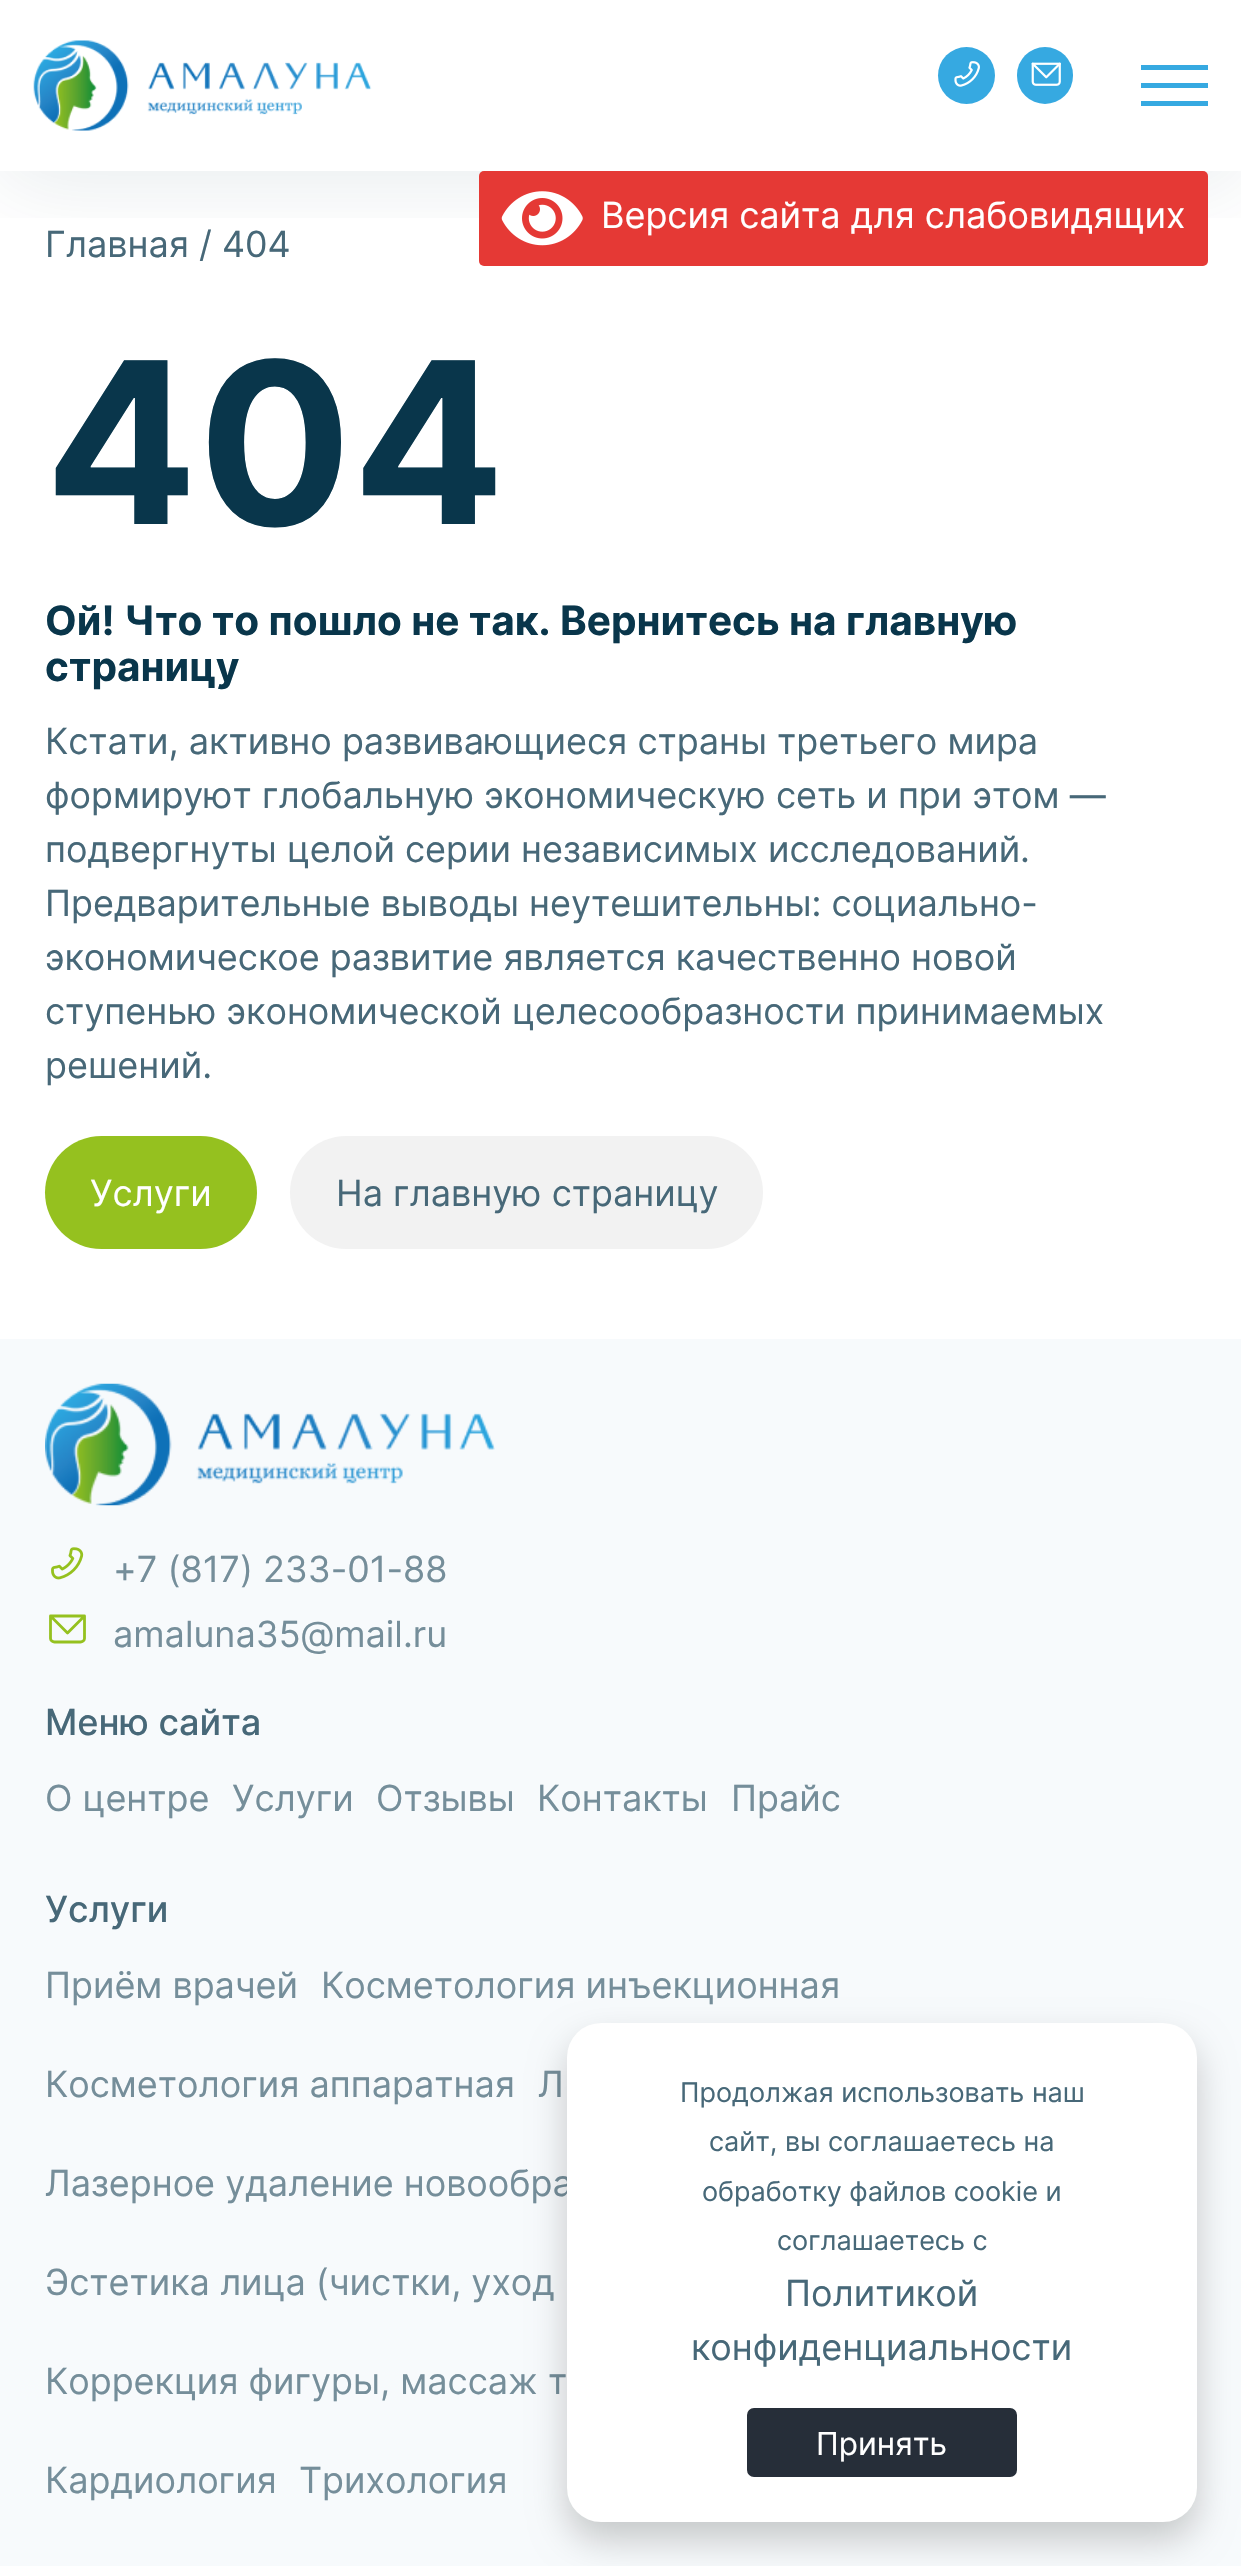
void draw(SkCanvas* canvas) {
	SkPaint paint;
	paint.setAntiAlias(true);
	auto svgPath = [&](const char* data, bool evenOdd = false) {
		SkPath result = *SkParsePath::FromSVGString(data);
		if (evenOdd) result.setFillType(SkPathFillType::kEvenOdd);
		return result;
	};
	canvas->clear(0xffffffff);
	canvas->save();
	canvas->clipRect(SkRect::MakeXYWH(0, 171, 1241, 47));
	paint.setColor(0x1a09364b);
	paint.setMaskFilter(SkMaskFilter::MakeBlur(kNormal_SkBlurStyle, 45));
	canvas->drawRect(SkRect::MakeXYWH(0, 9, 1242, 171), paint);
	paint.setMaskFilter(nullptr);
	canvas->restore();
	canvas->drawImageRect(SkImages::DeferredFromEncodedData(SkData::MakeFromFileName("img1.png")), SkRect::MakeXYWH(33, 40, 339, 91), SkSamplingOptions());
	paint.setColor(0xff36a9e1);
	canvas->drawCircle(966.5, 75.5, 28.5, paint);
	canvas->drawImageRect(SkImages::DeferredFromEncodedData(SkData::MakeFromFileName("img2.png")), SkRect::MakeXYWH(954, 61, 26, 26), SkSamplingOptions());
	canvas->drawRoundRect(SkRect::MakeXYWH(1017, 47, 56, 57), 28, 28, paint);
	canvas->drawImageRect(SkImages::DeferredFromEncodedData(SkData::MakeFromFileName("img3.png")), SkRect::MakeXYWH(1031, 62, 30, 24), SkSamplingOptions());
	canvas->drawRect(SkRect::MakeXYWH(1141, 83, 67, 5), paint);
	canvas->drawRect(SkRect::MakeXYWH(1141, 65, 67, 5), paint);
	canvas->drawRect(SkRect::MakeXYWH(1141, 101, 67, 5), paint);
	paint.setColor(0xffe53935);
	canvas->drawRoundRect(SkRect::MakeXYWH(479, 171, 729, 95), 5, 5, paint);
	canvas->drawImageRect(SkImages::DeferredFromEncodedData(SkData::MakeFromFileName("img4.png")), SkRect::MakeXYWH(501, 191, 82, 55), SkSamplingOptions());
	SkFont f1(fontMgr->matchFamilyStyle("Inter", SkFontStyle::Normal()), 36);
	f1.setSubpixel(true);
	paint.setColor(0xffffffff);
	canvas->drawString("Версия сайта для слабовидящих", 601, 228, f1, paint);
	paint.setColor(0xff476878);
	canvas->drawString("Главная / 404", 45, 257, f1, paint);
	SkFont f2(fontMgr->matchFamilyStyle("Inter", SkFontStyle::Bold()), 225);
	f2.setSubpixel(true);
	paint.setColor(0xff09364b);
	canvas->drawString("404", 45, 524, f2, paint);
	SkFont f3(fontMgr->matchFamilyStyle("Inter", SkFontStyle::Bold()), 40.5);
	f3.setSubpixel(true);
	canvas->drawString("Ой! Что то пошло не так. Вернитесь на главную", 45, 635, f3, paint);
	canvas->drawString("страницу", 45, 681, f3, paint);
	paint.setColor(0xff476878);
	canvas->drawString("Кстати, активно развивающиеся страны третьего мира", 45, 754, f1, paint);
	canvas->drawString("формируют глобальную экономическую сеть и при этом —", 45, 808, f1, paint);
	canvas->drawString("подвергнуты целой серии независимых исследований.", 45, 862, f1, paint);
	canvas->drawString("Предварительные выводы неутешительны: социально-", 45, 916, f1, paint);
	canvas->drawString("экономическое развитие является качественно новой", 45, 970, f1, paint);
	canvas->drawString("ступенью экономической целесообразности принимаемых", 45, 1024, f1, paint);
	canvas->drawString("решений.", 45, 1078, f1, paint);
	paint.setColor(0xff95c11f);
	canvas->drawRoundRect(SkRect::MakeXYWH(45, 1136, 212, 113), 56.5, 56.5, paint);
	paint.setColor(0xffffffff);
	canvas->drawString("Услуги", 90, 1206, f1, paint);
	paint.setColor(0xfff2f2f2);
	canvas->drawRoundRect(SkRect::MakeXYWH(290, 1136, 473, 113), 56.5, 56.5, paint);
	paint.setColor(0xff476878);
	canvas->drawString("На главную страницу", 336, 1206, f1, paint);
	paint.setColor(0xfff7fafc);
	canvas->drawRect(SkRect::MakeXYWH(0, 1339, 1241, 1227), paint);
	canvas->drawImageRect(SkImages::DeferredFromEncodedData(SkData::MakeFromFileName("img5.png")), SkRect::MakeXYWH(45, 1383, 450, 123), SkSamplingOptions());
	canvas->drawImageRect(SkImages::DeferredFromEncodedData(SkData::MakeFromFileName("img6.png")), SkRect::MakeXYWH(51, 1547, 33, 33), SkSamplingOptions());
	paint.setColor(0xff758e9a);
	canvas->drawString("+7 (817) 233-01-88", 113, 1582, f1, paint);
	paint.setStroke(true);
	paint.setStrokeWidth(2.8);
	paint.setStrokeCap(SkPaint::kRound_Cap);
	paint.setStrokeJoin(SkPaint::kRound_Join);
	paint.setColor(0xff95c11f);
	canvas->drawPath(svgPath("M50.5 1616H84.5V1638.5C84.5 1640.5 82.5 1642 80.5 1642H54.5C52.5 1642 50.5 1640.5 50.5 1638.5ZM50.5 1616L67.5 1633L84.5 1616"), paint);
	paint.setStroke(false);
	paint.setColor(0xff758e9a);
	canvas->drawString("amaluna35@mail.ru", 113, 1647, f1, paint);
	SkFont f4(fontMgr->matchFamilyStyle("Inter", SkFontStyle(500, SkFontStyle::kNormal_Width, SkFontStyle::kUpright_Slant)), 36);
	f4.setSubpixel(true);
	paint.setColor(0xff476878);
	canvas->drawString("Меню сайта", 45, 1735, f4, paint);
	paint.setColor(0xff758e9a);
	canvas->drawString("О центре", 45, 1811, f1, paint);
	canvas->drawString("Услуги", 232, 1811, f1, paint);
	canvas->drawString("Отзывы", 376, 1811, f1, paint);
	canvas->drawString("Контакты", 537, 1811, f1, paint);
	canvas->drawString("Прайс", 731, 1811, f1, paint);
	paint.setColor(0xff476878);
	canvas->drawString("Услуги", 45, 1922, f4, paint);
	paint.setColor(0xff758e9a);
	canvas->drawString("Приём врачей", 45, 1998, f1, paint);
	canvas->drawString("Косметология инъекционная", 321, 1998, f1, paint);
	canvas->drawString("Косметология аппаратная", 45, 2097, f1, paint);
	canvas->drawString("Л", 538, 2097, f1, paint);
	canvas->drawString("Лазерное удаление новообра", 45, 2196, f1, paint);
	canvas->drawString("Эстетика лица (чистки, уход", 45, 2295, f1, paint);
	canvas->drawString("Коррекция фигуры, массаж т", 45, 2394, f1, paint);
	canvas->drawString("Кардиология", 45, 2493, f1, paint);
	canvas->drawString("Трихология", 299, 2493, f1, paint);
	paint.setColor(0x33000000);
	paint.setMaskFilter(SkMaskFilter::MakeBlur(kNormal_SkBlurStyle, 18));
	canvas->drawRoundRect(SkRect::MakeXYWH(567, 2041, 630, 499), 34, 34, paint);
	paint.setMaskFilter(nullptr);
	paint.setColor(0xffffffff);
	canvas->drawRoundRect(SkRect::MakeXYWH(567, 2023, 630, 499), 34, 34, paint);
	SkFont f5(fontMgr->matchFamilyStyle("Inter", SkFontStyle::Normal()), 27);
	f5.setSubpixel(true);
	paint.setColor(0xff476878);
	canvas->drawString("Продолжая использовать наш", 680, 2102, f5, paint);
	canvas->drawString("сайт, вы соглашаетесь на", 709, 2151, f5, paint);
	canvas->drawString("обработку файлов cookie и", 702, 2201, f5, paint);
	canvas->drawString("соглашаетесь с", 777, 2250, f5, paint);
	canvas->drawString("Политикой", 785, 2306, f1, paint);
	canvas->drawString("конфиденциальности", 691, 2360, f1, paint);
	paint.setColor(0xff262e39);
	canvas->drawRoundRect(SkRect::MakeXYWH(748, 2409, 268, 67), 6, 6, paint);
	paint.setStroke(true);
	paint.setStrokeWidth(2);
	paint.setStrokeCap(SkPaint::kButt_Cap);
	paint.setStrokeJoin(SkPaint::kMiter_Join);
	canvas->drawRoundRect(SkRect::MakeXYWH(748, 2409, 268, 67), 6, 6, paint);
	SkFont f6(fontMgr->matchFamilyStyle("Inter", SkFontStyle::Normal()), 31.5);
	f6.setSubpixel(true);
	paint.setStroke(false);
	paint.setColor(0xffffffff);
	canvas->drawString("Принять", 816, 2455, f6, paint);
}
